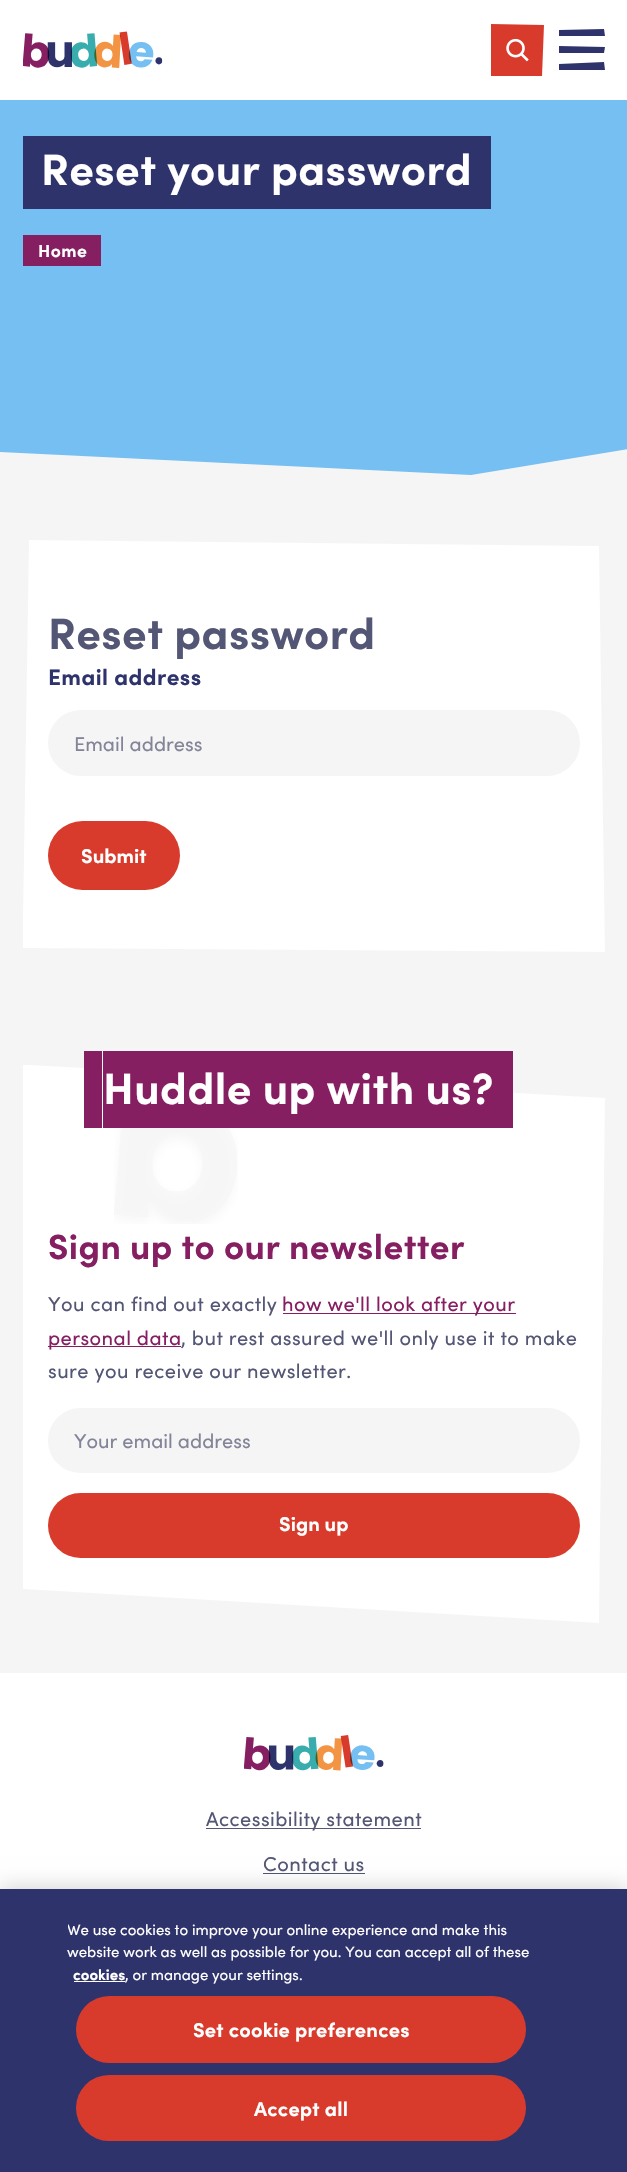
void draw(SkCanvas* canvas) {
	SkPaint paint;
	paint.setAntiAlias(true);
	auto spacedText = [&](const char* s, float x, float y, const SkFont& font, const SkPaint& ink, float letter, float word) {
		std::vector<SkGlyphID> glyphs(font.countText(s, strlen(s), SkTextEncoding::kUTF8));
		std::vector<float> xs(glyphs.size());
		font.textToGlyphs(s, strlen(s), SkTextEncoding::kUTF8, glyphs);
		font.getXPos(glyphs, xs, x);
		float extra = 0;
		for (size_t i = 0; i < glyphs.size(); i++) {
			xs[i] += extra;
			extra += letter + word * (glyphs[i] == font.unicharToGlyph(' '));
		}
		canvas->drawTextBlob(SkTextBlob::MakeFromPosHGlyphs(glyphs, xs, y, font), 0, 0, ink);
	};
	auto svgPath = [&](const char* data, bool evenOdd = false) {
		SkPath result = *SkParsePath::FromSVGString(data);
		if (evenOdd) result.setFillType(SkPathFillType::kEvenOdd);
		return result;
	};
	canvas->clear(0xfff5f5f5);
	paint.setColor(0xffffffff);
	canvas->drawRect(SkRect::MakeXYWH(0, 0, 627, 100), paint);
	canvas->drawImageRect(SkImages::DeferredFromEncodedData(SkData::MakeFromFileName("img1.png")), SkRect::MakeXYWH(23, 31, 140, 37), SkSamplingOptions());
	paint.setColor(0xffd83b2c);
	canvas->drawPath(svgPath("M491 76V24L544 25L542 76Z"), paint);
	canvas->drawImageRect(SkImages::DeferredFromEncodedData(SkData::MakeFromFileName("img2.png")), SkRect::MakeXYWH(506, 38, 23, 24), SkSamplingOptions());
	paint.setColor(0xff2f336c);
	canvas->drawPath(svgPath("M559 30L604 29L605 36H559ZM559 64L604 62L605 70H559Z"), paint);
	canvas->drawPath(svgPath("M605 47L559 46V53H604Z"), paint);
	paint.setColor(0xff75bff2);
	canvas->drawPath(svgPath("M0 100V452L471 475L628 449V100Z"), paint);
	paint.setColor(0xff2f336c);
	canvas->drawRect(SkRect::MakeXYWH(41, 136, 431, 73), paint);
	SkFont f1(fontMgr->matchFamilyStyle("Sofia", SkFontStyle::Bold()), 43.75);
	f1.setSubpixel(true);
	paint.setColor(0xffffffff);
	spacedText("Reset your password", 41, 185, f1, paint, 0.45, 0);
	paint.setColor(0xff2f336c);
	canvas->drawPath(svgPath("M23 136H454H41V209H454H23Z"), paint);
	canvas->drawPath(svgPath("M60 136H491V209H60H472V136Z"), paint);
	paint.setColor(0xff861e62);
	canvas->drawRect(SkRect::MakeXYWH(23, 235, 78, 31), paint);
	SkFont f2(fontMgr->matchFamilyStyle("Sofia", SkFontStyle::Bold()), 17.5);
	f2.setSubpixel(true);
	paint.setColor(0xffffffff);
	spacedText("Home", 38, 257, f2, paint, 0.45, 0);
	canvas->drawPath(svgPath("M29 540L23 915V948L605 952L599 546Z"), paint);
	paint.setColor(0xff545675);
	spacedText("Reset password", 48, 649, f1, paint, 0.45, 0);
	SkFont f3(fontMgr->matchFamilyStyle("Sofia", SkFontStyle::Bold()), 22.5);
	f3.setSubpixel(true);
	paint.setColor(0xff2f336c);
	spacedText("Email address", 48, 685, f3, paint, 0.45, 0);
	paint.setColor(0xfff5f5f5);
	canvas->drawRoundRect(SkRect::MakeXYWH(48, 710, 532, 66), 33, 33, paint);
	SkFont f4(fontMgr->matchFamilyStyle("Sofia", SkFontStyle::Normal()), 20);
	f4.setSubpixel(true);
	paint.setColor(0xff838498);
	canvas->drawString("Email address", 74, 751, f4, paint);
	paint.setColor(0xffd83b2c);
	canvas->drawRoundRect(SkRect::MakeXYWH(48, 821, 132, 69), 34.5, 34.5, paint);
	SkFont f5(fontMgr->matchFamilyStyle("Sofia", SkFontStyle::Bold()), 20);
	f5.setSubpixel(true);
	paint.setColor(0xffffffff);
	canvas->drawString("Submit", 81, 863, f5, paint);
	canvas->drawPath(svgPath("M23 1065H31L605 1098L599 1623L23 1589Z"), paint);
	canvas->drawImageRect(SkImages::DeferredFromEncodedData(SkData::MakeFromFileName("img3.png")), SkRect::MakeXYWH(114, 1128, 124, 96), SkSamplingOptions());
	paint.setColor(0xff861e62);
	canvas->drawRect(SkRect::MakeXYWH(103, 1051, 391, 77), paint);
	paint.setColor(0xffffffff);
	spacedText("Huddle up with us?", 103, 1104, f1, paint, 0.45, 0);
	paint.setColor(0xff861e62);
	canvas->drawPath(svgPath("M84 1051V1128H475H102V1051H475Z"), paint);
	canvas->drawPath(svgPath("M121 1051H494V1128H121H513V1051Z"), paint);
	SkFont f6(fontMgr->matchFamilyStyle("Sofia", SkFontStyle::Bold()), 35);
	f6.setSubpixel(true);
	spacedText("Sign up to our newsletter", 48, 1259, f6, paint, 0.45, 0);
	paint.setColor(0xff545675);
	spacedText("You can find out exactly", 48, 1311, f4, paint, 0.45, 0);
	paint.setColor(0xff861e62);
	canvas->drawRect(SkRect::MakeXYWH(283, 1313, 233, 1), paint);
	spacedText("how we'll look after your", 282, 1311, f4, paint, 0.45, 0);
	canvas->drawRect(SkRect::MakeXYWH(48, 1346, 133, 1), paint);
	spacedText("personal data", 48, 1345, f4, paint, 0.45, 0);
	paint.setColor(0xff545675);
	spacedText(", but rest assured we'll only use it to make", 181, 1345, f4, paint, 0.45, 0);
	spacedText("sure you receive our newsletter.", 48, 1378, f4, paint, 0.45, 0);
	paint.setColor(0xfff5f5f5);
	canvas->drawRoundRect(SkRect::MakeXYWH(48, 1408, 532, 65), 32.5, 32.5, paint);
	paint.setColor(0xff838498);
	canvas->drawString("Your email address", 74, 1448, f4, paint);
	paint.setColor(0xffd83b2c);
	canvas->drawRoundRect(SkRect::MakeXYWH(48, 1493, 532, 65), 32.5, 32.5, paint);
	paint.setColor(0xffffffff);
	canvas->drawString("Sign up", 279, 1531, f5, paint);
	canvas->drawRect(SkRect::MakeXYWH(0, 1673, 627, 216), paint);
	canvas->drawImageRect(SkImages::DeferredFromEncodedData(SkData::MakeFromFileName("img4.png")), SkRect::MakeXYWH(244, 1735, 140, 36), SkSamplingOptions());
	paint.setColor(0xff545675);
	canvas->drawRect(SkRect::MakeXYWH(206, 1828, 215, 1), paint);
	spacedText("Accessibility statement", 206, 1826, f4, paint, 0.45, 0);
	spacedText("Contact us", 263, 1871, f4, paint, 0.45, 0);
	canvas->drawRect(SkRect::MakeXYWH(263, 1873, 102, 1), paint);
	paint.setColor(0x33000000);
	paint.setMaskFilter(SkMaskFilter::MakeBlur(kNormal_SkBlurStyle, 11));
	canvas->drawRect(SkRect::MakeXYWH(0, 1889, 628, 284), paint);
	paint.setMaskFilter(nullptr);
	paint.setColor(0xff2f336c);
	canvas->drawRect(SkRect::MakeXYWH(0, 1889, 627, 283), paint);
	canvas->save();
	canvas->clipRect(SkRect::MakeXYWH(68, 1918, 492, 67));
	SkFont f7(fontMgr->matchFamilyStyle("Sofia", SkFontStyle::Normal()), 15);
	f7.setSubpixel(true);
	paint.setColor(0xffffffff);
	canvas->drawString("We use cookies to improve your online experience and make this", 67, 1935, f7, paint);
	canvas->restore();
	canvas->drawString("website work as well as possible for you. You can accept all of these", 67, 1957, f7, paint);
	SkFont f8(fontMgr->matchFamilyStyle("Sofia", SkFontStyle::Bold()), 15);
	f8.setSubpixel(true);
	canvas->drawString("cookies", 73, 1980, f8, paint);
	canvas->drawRect(SkRect::MakeXYWH(74, 1981, 51, 1), paint);
	canvas->drawString(", or manage your settings.", 125, 1980, f7, paint);
	paint.setColor(0xffd83b2c);
	canvas->drawRoundRect(SkRect::MakeXYWH(76, 1996, 450, 67), 33.5, 33.5, paint);
	paint.setColor(0xffffffff);
	spacedText("Set cookie preferences", 193, 2037, f5, paint, 0.2, 0);
	paint.setColor(0xffd83b2c);
	canvas->drawRoundRect(SkRect::MakeXYWH(76, 2075, 450, 66), 33, 33, paint);
	paint.setColor(0xffffffff);
	spacedText("Accept all", 254, 2116, f5, paint, 0.2, 0);
}
